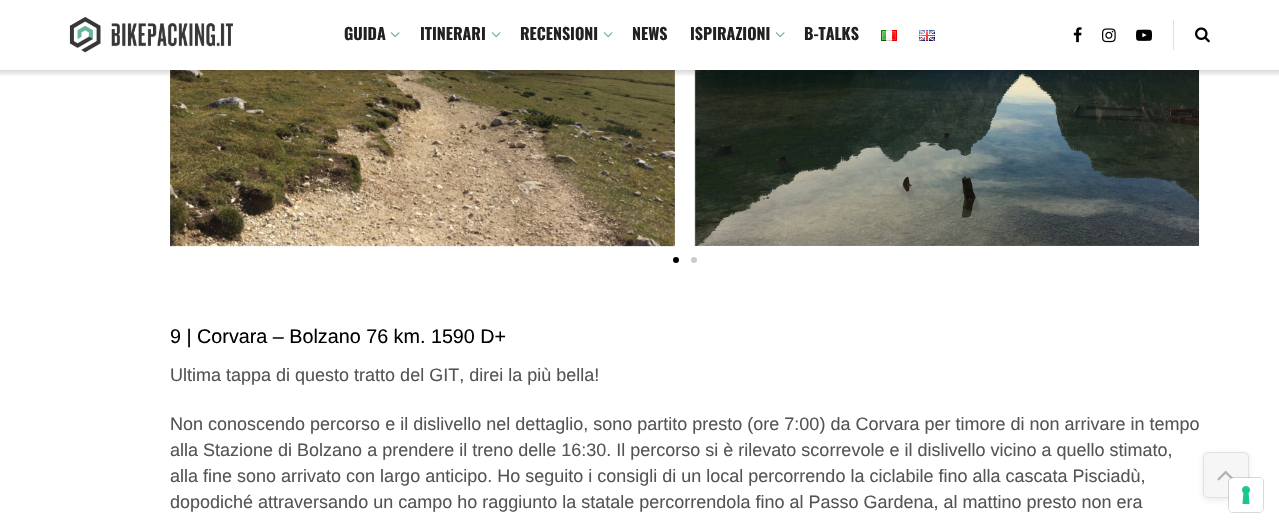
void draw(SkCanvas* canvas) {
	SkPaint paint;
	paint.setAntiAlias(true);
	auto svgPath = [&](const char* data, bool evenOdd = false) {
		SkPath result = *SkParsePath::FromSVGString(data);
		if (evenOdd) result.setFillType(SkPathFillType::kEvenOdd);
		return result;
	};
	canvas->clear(0xffffffff);
	canvas->drawImageRect(SkImages::DeferredFromEncodedData(SkData::MakeFromFileName("img1.png")), SkRect::MakeXYWH(69, 17, 164, 36), SkSamplingOptions());
	SkFont f1(fontMgr->matchFamilyStyle("Oswald", SkFontStyle::Bold()), 16);
	f1.setSubpixel(true);
	paint.setColor(0xff212121);
	canvas->drawString("GUIDA", 344, 40, f1, paint);
	canvas->drawImageRect(SkImages::DeferredFromEncodedData(SkData::MakeFromFileName("img2.png")), SkRect::MakeXYWH(390, 32, 10, 6), SkSamplingOptions());
	canvas->drawString("ITINERARI", 420, 40, f1, paint);
	canvas->drawImageRect(SkImages::DeferredFromEncodedData(SkData::MakeFromFileName("img2.png")), SkRect::MakeXYWH(491, 32, 10, 6), SkSamplingOptions());
	canvas->drawString("RECENSIONI", 520, 40, f1, paint);
	canvas->drawImageRect(SkImages::DeferredFromEncodedData(SkData::MakeFromFileName("img2.png")), SkRect::MakeXYWH(603, 32, 10, 6), SkSamplingOptions());
	canvas->drawString("NEWS", 632, 40, f1, paint);
	canvas->drawString("ISPIRAZIONI", 690, 40, f1, paint);
	canvas->drawImageRect(SkImages::DeferredFromEncodedData(SkData::MakeFromFileName("img2.png")), SkRect::MakeXYWH(775, 32, 10, 6), SkSamplingOptions());
	canvas->drawString("B-TALKS", 804, 40, f1, paint);
	canvas->drawImageRect(SkImages::DeferredFromEncodedData(SkData::MakeFromFileName("img3.png")), SkRect::MakeXYWH(881, 30, 16, 11), SkSamplingOptions());
	canvas->drawImageRect(SkImages::DeferredFromEncodedData(SkData::MakeFromFileName("img4.png")), SkRect::MakeXYWH(919, 30, 16, 11), SkSamplingOptions());
	canvas->drawImageRect(SkImages::DeferredFromEncodedData(SkData::MakeFromFileName("img5.png")), SkRect::MakeXYWH(1073, 27, 9, 16), SkSamplingOptions());
	canvas->drawImageRect(SkImages::DeferredFromEncodedData(SkData::MakeFromFileName("img6.png")), SkRect::MakeXYWH(1102, 28, 14, 15), SkSamplingOptions());
	canvas->drawImageRect(SkImages::DeferredFromEncodedData(SkData::MakeFromFileName("img7.png")), SkRect::MakeXYWH(1136, 29, 16, 12), SkSamplingOptions());
	paint.setColor(0xffe0e0e0);
	canvas->drawRect(SkRect::MakeXYWH(1173, 20, 1, 30), paint);
	canvas->drawImageRect(SkImages::DeferredFromEncodedData(SkData::MakeFromFileName("img8.png")), SkRect::MakeXYWH(1195, 27, 15, 16), SkSamplingOptions());
	canvas->drawImageRect(SkImages::DeferredFromEncodedData(SkData::MakeFromFileName("img9.png")), SkRect::MakeXYWH(170, 70, 505, 177), SkSamplingOptions());
	canvas->drawImageRect(SkImages::DeferredFromEncodedData(SkData::MakeFromFileName("img10.png")), SkRect::MakeXYWH(694, 70, 506, 176), SkSamplingOptions());
	{
		const SkColor colors[] = {0x26000000, 0x00000000};
		const float stops[] = {0, 1};
		const SkPoint ends[] = {{640, 70}, {640, 77}};
		paint.setShader(SkGradientShader::MakeLinear(ends, colors, stops, 2, SkTileMode::kClamp));
		paint.setAlpha(255);
	}
	canvas->drawRect(SkRect::MakeXYWH(0, 70, 1279, 6), paint);
	paint.setShader(nullptr);
	paint.setColor(0xff000000);
	canvas->drawCircle(676, 260, 3, paint);
	paint.setColor(0xffcccccc);
	canvas->drawCircle(694, 260, 3, paint);
	SkFont f2(fontMgr->matchFamilyStyle("Liberation Sans", SkFontStyle::Normal()), 19.75);
	f2.setSubpixel(true);
	paint.setColor(0xff000000);
	canvas->drawString("9 | Corvara – Bolzano 76 km. 1590 D+", 170, 343, f2, paint);
	SkFont f3(fontMgr->matchFamilyStyle("Liberation Sans", SkFontStyle::Normal()), 18);
	f3.setSubpixel(true);
	paint.setColor(0xff555555);
	canvas->drawString("Ultima tappa di questo tratto del GIT, direi la più bella!", 170, 381, f3, paint);
	canvas->drawString("Non conoscendo percorso e il dislivello nel dettaglio, sono partito presto (ore 7:00) da Corvara per timore di non arrivare in tempo", 170, 430, f3, paint);
	canvas->drawString("alla Stazione di Bolzano a prendere il treno delle 16:30. Il percorso si è rilevato scorrevole e il dislivello vicino a quello stimato,", 170, 456, f3, paint);
	canvas->drawString("alla fine sono arrivato con largo anticipo. Ho seguito i consigli di un local percorrendo la ciclabile fino alla cascata Pisciadù,", 170, 482, f3, paint);
	canvas->drawString("dopodiché attraversando un campo ho raggiunto la statale percorrendola fino al Passo Gardena, al mattino presto non era", 170, 508, f3, paint);
	canvas->save();
	canvas->clipPath(svgPath("M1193 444H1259V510H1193ZM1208 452H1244C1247 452 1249 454 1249 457V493C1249 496 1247 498 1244 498H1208C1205 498 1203 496 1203 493V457C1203 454 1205 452 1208 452Z", true), true);
	paint.setColor(0x1a333333);
	paint.setMaskFilter(SkMaskFilter::MakeBlur(kNormal_SkBlurStyle, 3));
	canvas->drawRoundRect(SkRect::MakeXYWH(1203, 454, 46, 46), 5, 5, paint);
	paint.setMaskFilter(nullptr);
	canvas->restore();
	paint.setColor(0x26c3c3c3);
	canvas->drawRoundRect(SkRect::MakeXYWH(1203, 452, 46, 46), 5, 5, paint);
	paint.setStroke(true);
	paint.setStrokeWidth(1);
	paint.setColor(0x1c333333);
	canvas->drawRoundRect(SkRect::MakeXYWH(1203.5, 452.5, 45, 45), 4.5, 4.5, paint);
	canvas->drawImageRect(SkImages::DeferredFromEncodedData(SkData::MakeFromFileName("img11.png")), SkRect::MakeXYWH(1217, 470, 16, 11), SkSamplingOptions());
	paint.setColor(0x26000000);
	canvas->drawRoundRect(SkRect::MakeXYWH(1228.5, 477.5, 35, 35), 4.5, 4.5, paint);
	paint.setStroke(false);
	paint.setColor(0xffffffff);
	canvas->drawRoundRect(SkRect::MakeXYWH(1229, 478, 34, 34), 4, 4, paint);
	canvas->drawImageRect(SkImages::DeferredFromEncodedData(SkData::MakeFromFileName("img12.png")), SkRect::MakeXYWH(1242, 486, 8, 18), SkSamplingOptions());
}
